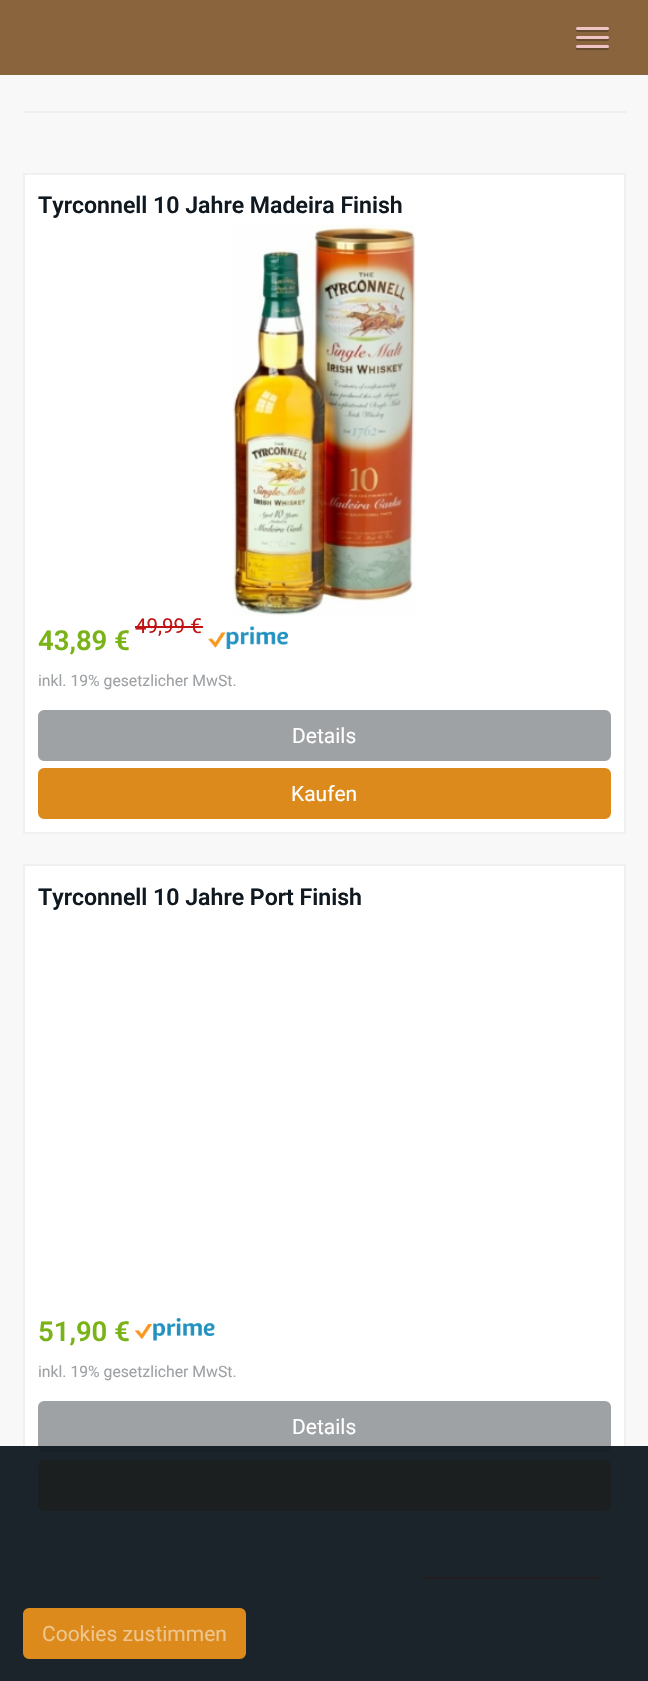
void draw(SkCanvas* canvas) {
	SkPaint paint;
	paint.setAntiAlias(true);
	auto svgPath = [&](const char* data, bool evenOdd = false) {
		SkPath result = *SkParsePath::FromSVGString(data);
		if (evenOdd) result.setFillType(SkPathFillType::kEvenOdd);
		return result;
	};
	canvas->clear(0xfff8f8f8);
	paint.setColor(0xff89643d);
	canvas->drawRect(SkRect::MakeXYWH(0, 0, 648, 75), paint);
	paint.setColor(0xff674b2e);
	canvas->drawPath(svgPath("M576.5 29.5C575.5 30.5 576 31.5 577 32H597.5C599 32 607.5 32.5 608.5 31.5C609 31 609 30 608.5 29.5L607.5 30H577.5Z"), paint);
	paint.setColor(0xffefc4c4);
	canvas->drawRoundRect(SkRect::MakeXYWH(576, 27, 33, 3), 1.5, 1.5, paint);
	paint.setColor(0xff674b2e);
	canvas->drawPath(svgPath("M576.5 38.5C575.5 39.5 576 40.5 577 41H597.5C599 41 607.5 41.5 608.5 40.5C609 40 609 39 608.5 38.5L607.5 39H577.5Z"), paint);
	paint.setColor(0xffefc4c4);
	canvas->drawRoundRect(SkRect::MakeXYWH(576, 36, 33, 3), 1.5, 1.5, paint);
	paint.setColor(0xff674b2e);
	canvas->drawPath(svgPath("M576.5 47.5C575.5 48.5 576 49.5 577 50H597.5C599 50 607.5 50.5 608.5 49.5C609 49 609 48 608.5 47.5L607.5 48H577.5Z"), paint);
	paint.setColor(0xffefc4c4);
	canvas->drawRoundRect(SkRect::MakeXYWH(576, 45, 33, 3), 1.5, 1.5, paint);
	paint.setColor(0xffeeeeee);
	canvas->drawRect(SkRect::MakeXYWH(23, 111, 603, 2), paint);
	paint.setColor(0xffffffff);
	canvas->drawRect(SkRect::MakeXYWH(24, 174, 601, 659), paint);
	paint.setStroke(true);
	paint.setStrokeWidth(2);
	paint.setColor(0xfff0f0f0);
	canvas->drawRect(SkRect::MakeXYWH(24, 174, 601, 659), paint);
	SkFont f1(fontMgr->matchFamilyStyle("Roboto", SkFontStyle(600, SkFontStyle::kNormal_Width, SkFontStyle::kUpright_Slant)), 23.1);
	f1.setSubpixel(true);
	paint.setStroke(false);
	paint.setColor(0xff101820);
	canvas->drawString("Tyrconnell 10 Jahre Madeira Finish", 38, 213, f1, paint);
	canvas->drawImageRect(SkImages::DeferredFromEncodedData(SkData::MakeFromFileName("img1.png")), SkRect::MakeXYWH(232, 225, 184, 391), SkSamplingOptions());
	SkFont f2(fontMgr->matchFamilyStyle("Roboto", SkFontStyle(600, SkFontStyle::kNormal_Width, SkFontStyle::kUpright_Slant)), 27.5);
	f2.setSubpixel(true);
	paint.setColor(0xff7ab317);
	canvas->drawString("43,89 €", 38, 650, f2, paint);
	SkFont f3(fontMgr->matchFamilyStyle("Roboto", SkFontStyle::Normal()), 20.5);
	f3.setSubpixel(true);
	paint.setColor(0xffc01313);
	canvas->drawString("49,99 €", 135, 633, f3, paint);
	canvas->drawRect(SkRect::MakeXYWH(135, 626, 68, 2), paint);
	canvas->drawImageRect(SkImages::DeferredFromEncodedData(SkData::MakeFromFileName("img2.png")), SkRect::MakeXYWH(208, 626, 80, 23), SkSamplingOptions());
	SkFont f4(fontMgr->matchFamilyStyle("Roboto", SkFontStyle::Normal()), 15.75);
	f4.setSubpixel(true);
	paint.setColor(0xff9fa2a5);
	canvas->drawString("inkl. 19% gesetzlicher MwSt.", 38, 686, f4, paint);
	canvas->drawRoundRect(SkRect::MakeXYWH(39, 711, 571, 49), 5, 5, paint);
	paint.setStroke(true);
	canvas->drawRoundRect(SkRect::MakeXYWH(39, 711, 571, 49), 5, 5, paint);
	SkFont f5(fontMgr->matchFamilyStyle("Roboto", SkFontStyle::Normal()), 21);
	f5.setSubpixel(true);
	paint.setStroke(false);
	paint.setColor(0xffffffff);
	canvas->drawString("Details", 292, 743, f5, paint);
	paint.setColor(0xffdc8a1b);
	canvas->drawRoundRect(SkRect::MakeXYWH(39, 769, 571, 49), 5, 5, paint);
	paint.setStroke(true);
	canvas->drawRoundRect(SkRect::MakeXYWH(39, 769, 571, 49), 5, 5, paint);
	paint.setStroke(false);
	paint.setColor(0xffffffff);
	canvas->drawString("Kaufen", 291, 801, f5, paint);
	canvas->drawRect(SkRect::MakeXYWH(24, 865, 601, 660), paint);
	paint.setStroke(true);
	paint.setColor(0xfff0f0f0);
	canvas->drawRect(SkRect::MakeXYWH(24, 865, 601, 660), paint);
	paint.setStroke(false);
	paint.setColor(0xff101820);
	canvas->drawString("Tyrconnell 10 Jahre Port Finish", 38, 905, f1, paint);
	paint.setColor(0xff7ab317);
	canvas->drawString("51,90 €", 38, 1341, f2, paint);
	canvas->drawImageRect(SkImages::DeferredFromEncodedData(SkData::MakeFromFileName("img3.png")), SkRect::MakeXYWH(135, 1318, 80, 23), SkSamplingOptions());
	paint.setColor(0xff9fa2a5);
	canvas->drawString("inkl. 19% gesetzlicher MwSt.", 38, 1377, f4, paint);
	canvas->drawRoundRect(SkRect::MakeXYWH(39, 1402, 571, 49), 5, 5, paint);
	paint.setStroke(true);
	canvas->drawRoundRect(SkRect::MakeXYWH(39, 1402, 571, 49), 5, 5, paint);
	paint.setStroke(false);
	paint.setColor(0xffffffff);
	canvas->drawString("Details", 292, 1434, f5, paint);
	paint.setColor(0xffdc8a1b);
	canvas->drawRoundRect(SkRect::MakeXYWH(39, 1461, 571, 49), 5, 5, paint);
	paint.setStroke(true);
	canvas->drawRoundRect(SkRect::MakeXYWH(39, 1461, 571, 49), 5, 5, paint);
	paint.setStroke(false);
	paint.setColor(0xffffffff);
	canvas->drawRect(SkRect::MakeXYWH(24, 1557, 601, 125), paint);
	paint.setStroke(true);
	paint.setColor(0xfff0f0f0);
	canvas->drawRect(SkRect::MakeXYWH(24, 1557, 601, 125), paint);
	paint.setStroke(false);
	paint.setColor(0xf2101820);
	canvas->drawRect(SkRect::MakeXYWH(0, 1446, 648, 235), paint);
	paint.setColor(0xff221e1f);
	canvas->drawRect(SkRect::MakeXYWH(423, 1577, 179, 2), paint);
	paint.setColor(0xffdc8a1b);
	canvas->drawRoundRect(SkRect::MakeXYWH(24, 1609, 221, 49), 5, 5, paint);
	paint.setStroke(true);
	canvas->drawRoundRect(SkRect::MakeXYWH(24, 1609, 221, 49), 5, 5, paint);
	paint.setStroke(false);
	paint.setColor(0xffeec58d);
	canvas->drawString("Cookies zustimmen", 42, 1641, f5, paint);
}
